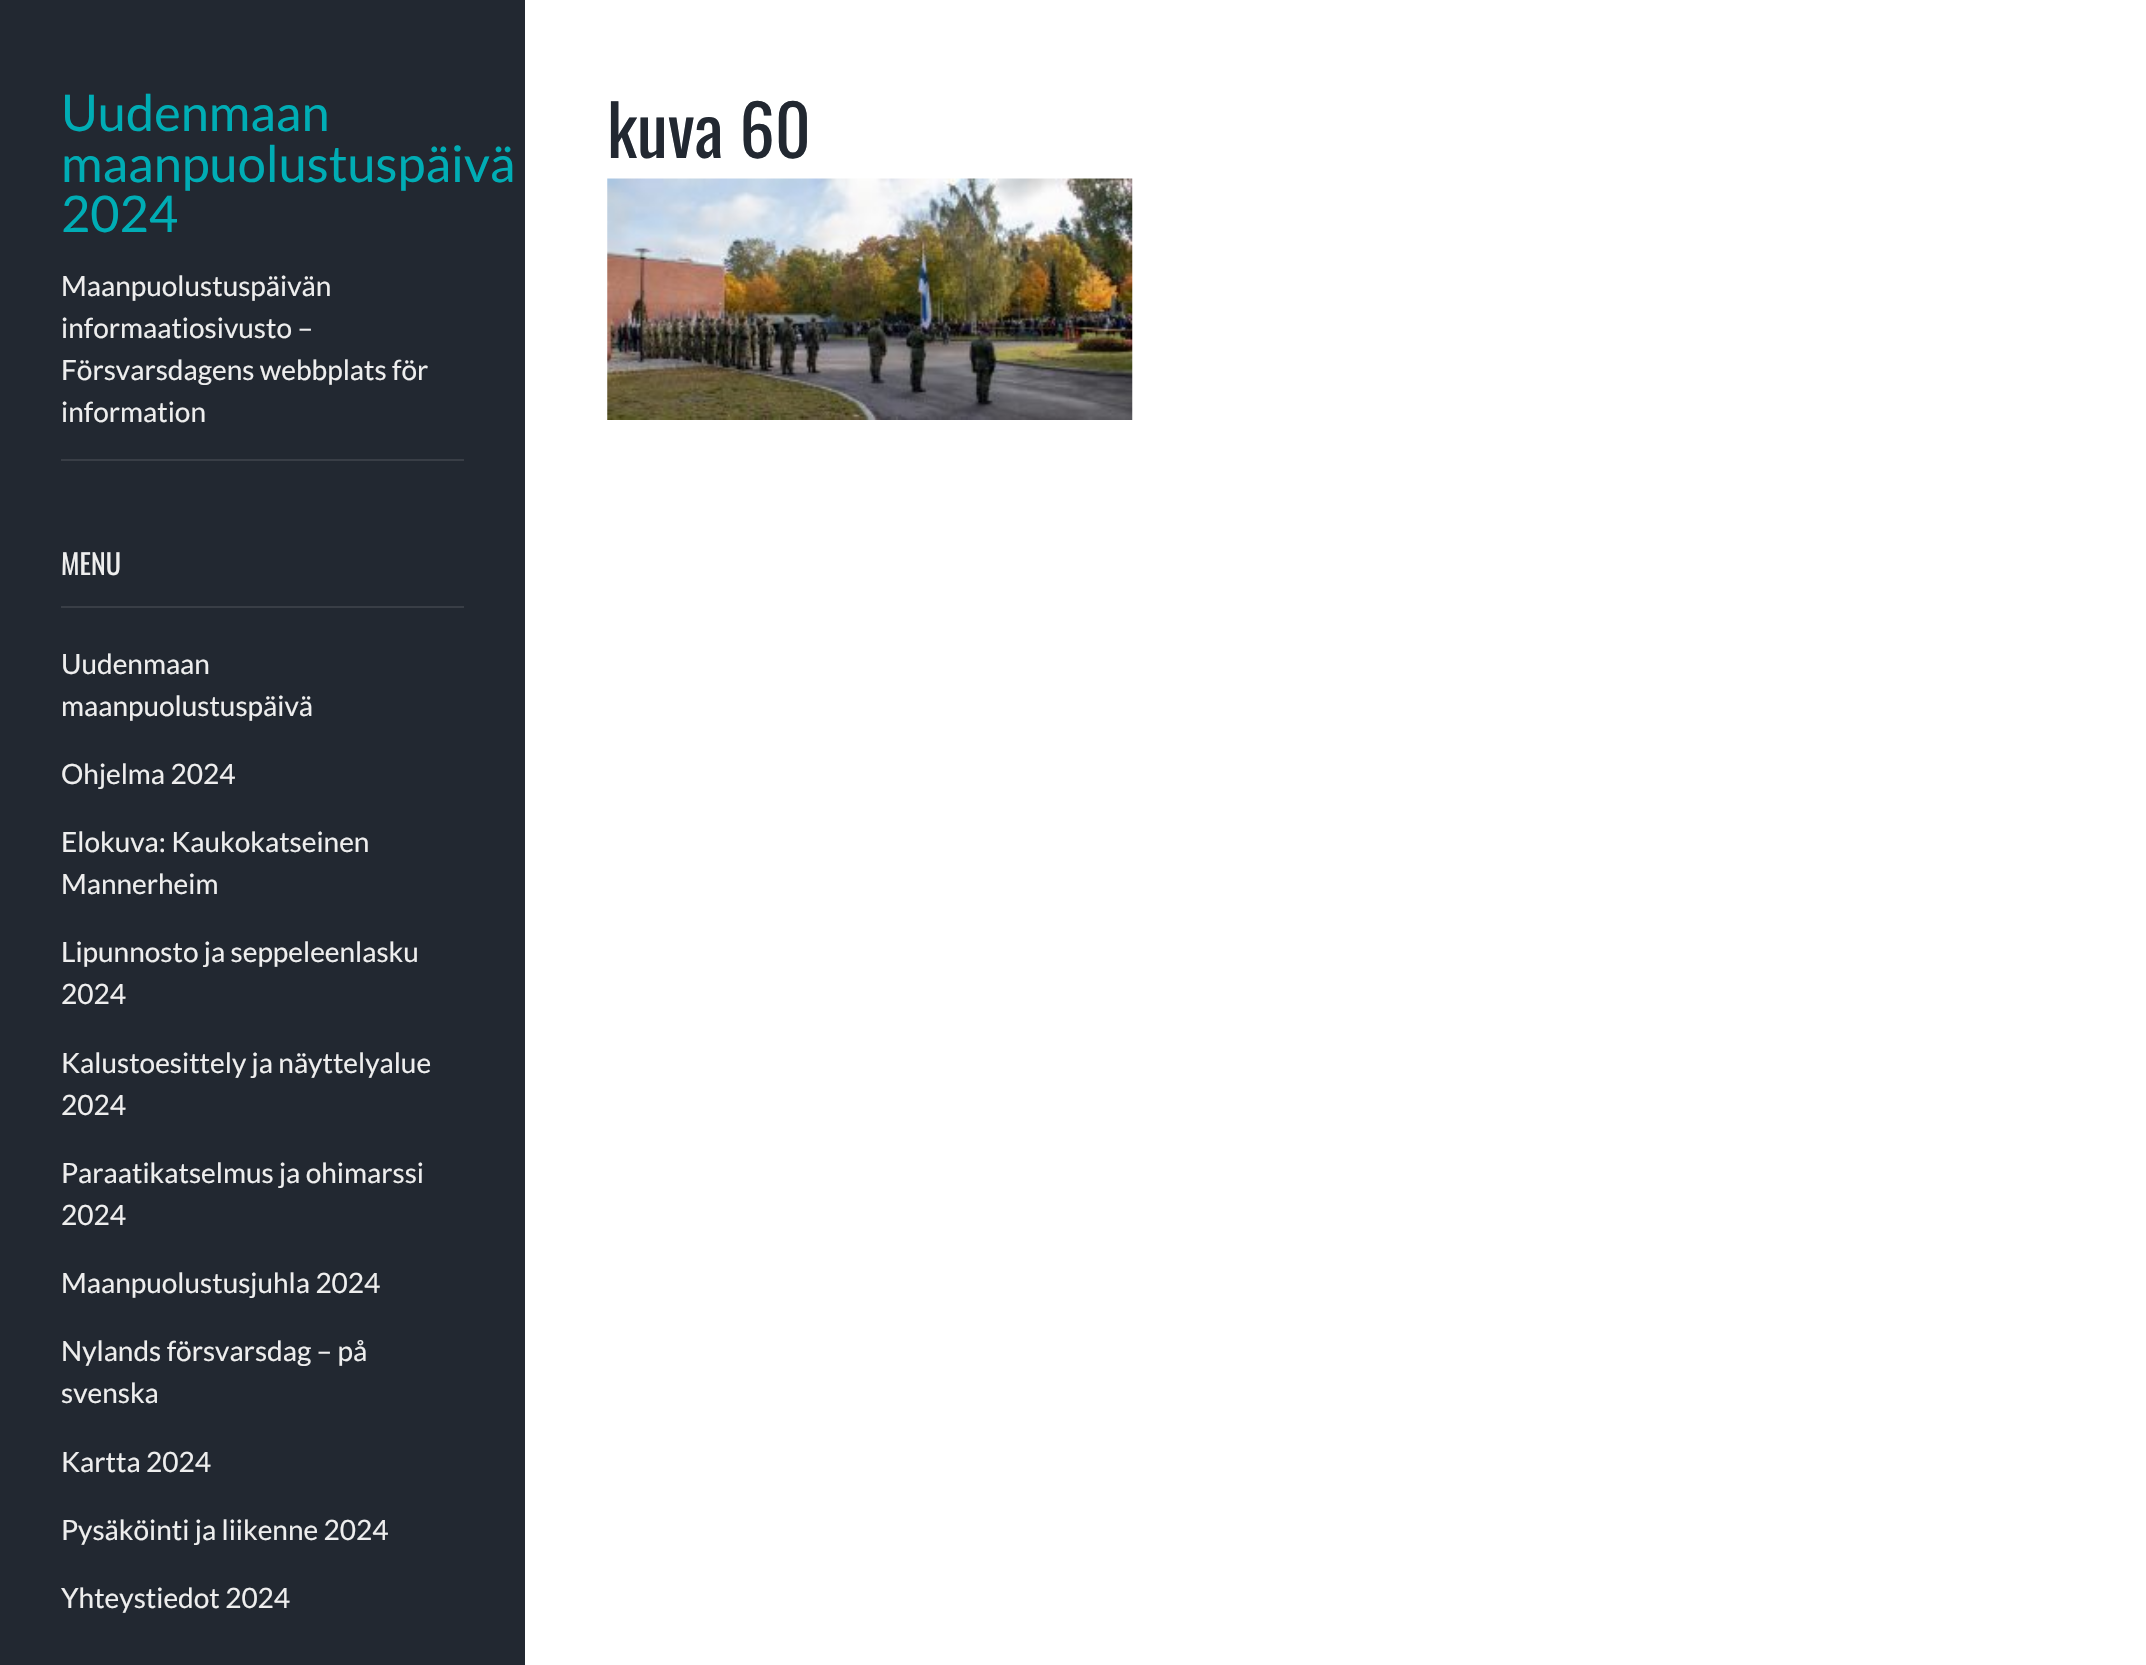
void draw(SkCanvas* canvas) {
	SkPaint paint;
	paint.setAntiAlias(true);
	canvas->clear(0xffffffff);
	paint.setColor(0xff222831);
	canvas->drawRect(SkRect::MakeXYWH(0, 0, 525, 1665), paint);
	paint.setColor(0xff393e46);
	canvas->drawRect(SkRect::MakeXYWH(61, 459, 403, 2), paint);
	SkFont f1(fontMgr->matchFamilyStyle("Lato", SkFontStyle::Normal()), 50.5);
	f1.setSubpixel(true);
	paint.setColor(0xff00adb5);
	canvas->drawString("Uudenmaan", 61, 131, f1, paint);
	canvas->drawString("maanpuolustuspäivä", 61, 182, f1, paint);
	canvas->drawString("2024", 61, 232, f1, paint);
	SkFont f2(fontMgr->matchFamilyStyle("Lato", SkFontStyle::Normal()), 28);
	f2.setSubpixel(true);
	paint.setColor(0xffeeeeee);
	canvas->drawString("Maanpuolustuspäivän", 61, 296, f2, paint);
	canvas->drawString("informaatiosivusto –", 61, 338, f2, paint);
	canvas->drawString("Försvarsdagens webbplats för", 61, 380, f2, paint);
	canvas->drawString("information", 61, 422, f2, paint);
	paint.setColor(0xff393e46);
	canvas->drawRect(SkRect::MakeXYWH(61, 606, 403, 2), paint);
	SkFont f3(fontMgr->matchFamilyStyle("Oswald", SkFontStyle::Normal()), 28);
	f3.setSubpixel(true);
	paint.setColor(0xffeeeeee);
	canvas->drawString("MENU", 61, 575, f3, paint);
	canvas->drawString("Uudenmaan", 61, 674, f2, paint);
	canvas->drawString("maanpuolustuspäivä", 61, 716, f2, paint);
	canvas->drawString("Ohjelma 2024", 61, 784, f2, paint);
	canvas->drawString("Elokuva: Kaukokatseinen", 61, 852, f2, paint);
	canvas->drawString("Mannerheim", 61, 894, f2, paint);
	canvas->drawString("Lipunnosto ja seppeleenlasku", 61, 962, f2, paint);
	canvas->drawString("2024", 61, 1004, f2, paint);
	canvas->drawString("Kalustoesittely ja näyttelyalue", 61, 1073, f2, paint);
	canvas->drawString("2024", 61, 1115, f2, paint);
	canvas->drawString("Paraatikatselmus ja ohimarssi", 61, 1183, f2, paint);
	canvas->drawString("2024", 61, 1225, f2, paint);
	canvas->drawString("Maanpuolustusjuhla 2024", 61, 1293, f2, paint);
	canvas->drawString("Nylands försvarsdag – på", 61, 1361, f2, paint);
	canvas->drawString("svenska", 61, 1403, f2, paint);
	canvas->drawString("Kartta 2024", 61, 1472, f2, paint);
	canvas->drawString("Pysäköinti ja liikenne 2024", 61, 1540, f2, paint);
	canvas->drawString("Yhteystiedot 2024", 61, 1608, f2, paint);
	SkFont f4(fontMgr->matchFamilyStyle("Oswald", SkFontStyle::Normal()), 70);
	f4.setSubpixel(true);
	paint.setColor(0xff222831);
	canvas->drawString("kuva 60", 607, 158, f4, paint);
	canvas->drawImageRect(SkImages::DeferredFromEncodedData(SkData::MakeFromFileName("img1.png")), SkRect::MakeXYWH(607, 178, 526, 242), SkSamplingOptions());
}
